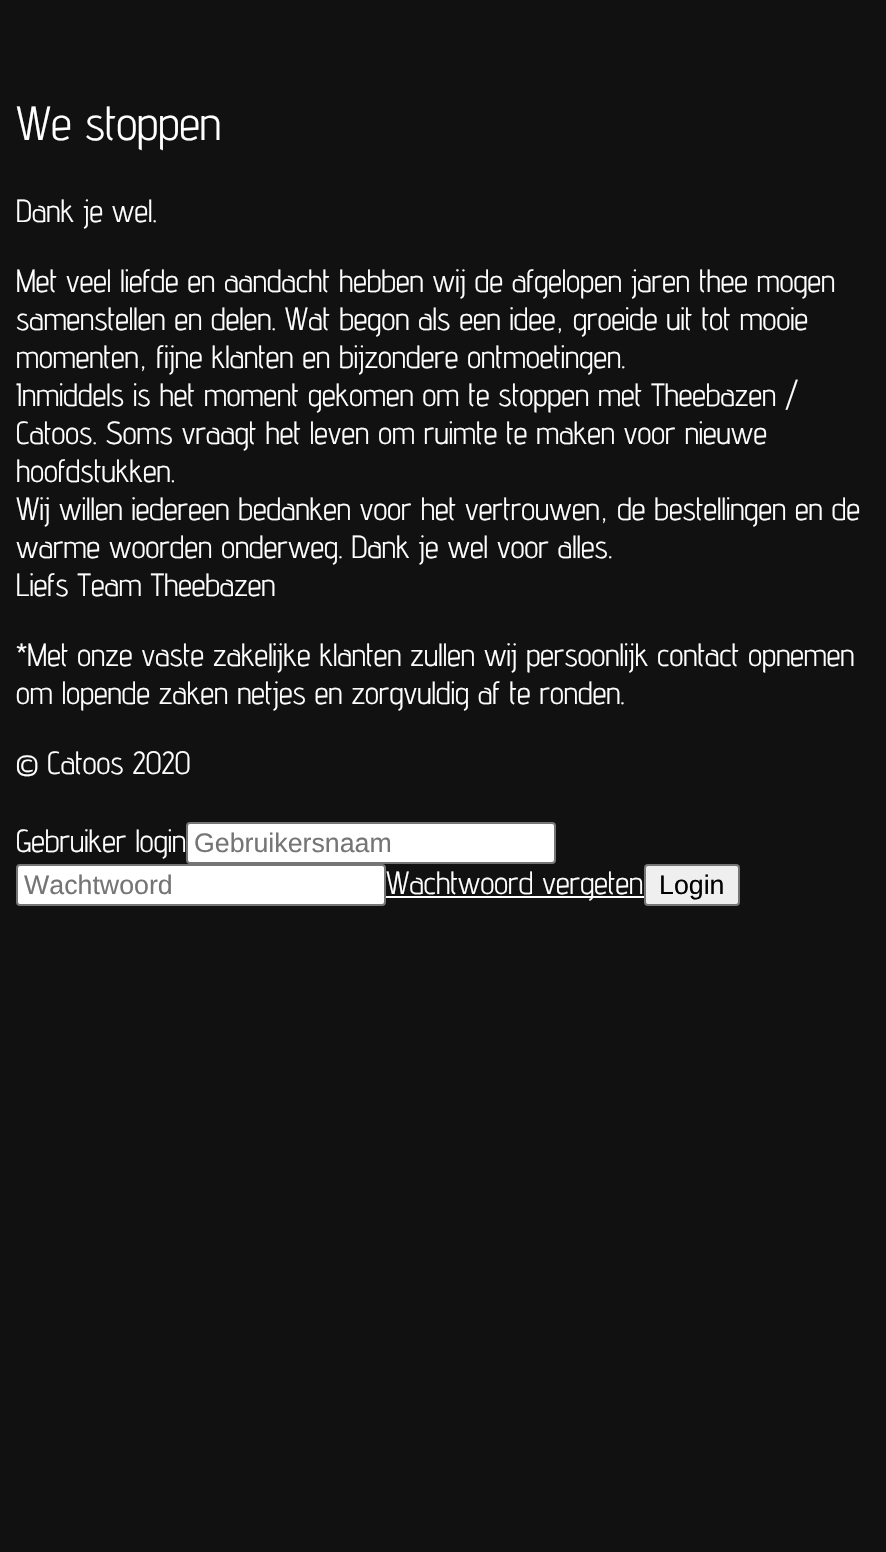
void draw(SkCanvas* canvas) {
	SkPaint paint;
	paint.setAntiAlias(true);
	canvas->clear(0xff111111);
	SkFont f1(fontMgr->matchFamilyStyle("Advent Pro", SkFontStyle::Normal()), 48);
	f1.setSubpixel(true);
	paint.setColor(0xffffffff);
	canvas->drawString("We stoppen", 16, 140, f1, paint);
	SkFont f2(fontMgr->matchFamilyStyle("Advent Pro", SkFontStyle::Normal()), 32);
	f2.setSubpixel(true);
	canvas->drawString("Dank je wel.", 16, 222, f2, paint);
	canvas->drawString("Met veel liefde en aandacht hebben wij de afgelopen jaren thee mogen", 16, 292, f2, paint);
	canvas->drawString("samenstellen en delen. Wat begon als een idee, groeide uit tot mooie", 16, 330, f2, paint);
	canvas->drawString("momenten, fijne klanten en bijzondere ontmoetingen.", 16, 368, f2, paint);
	canvas->drawString("Inmiddels is het moment gekomen om te stoppen met Theebazen /", 16, 406, f2, paint);
	canvas->drawString("Catoos. Soms vraagt het leven om ruimte te maken voor nieuwe", 16, 444, f2, paint);
	canvas->drawString("hoofdstukken.", 16, 482, f2, paint);
	canvas->drawString("Wij willen iedereen bedanken voor het vertrouwen, de bestellingen en de", 16, 520, f2, paint);
	canvas->drawString("warme woorden onderweg. Dank je wel voor alles.", 16, 558, f2, paint);
	canvas->drawString("Liefs Team Theebazen", 16, 596, f2, paint);
	canvas->drawString("*Met onze vaste zakelijke klanten zullen wij persoonlijk contact opnemen", 16, 666, f2, paint);
	canvas->drawString("om lopende zaken netjes en zorgvuldig af te ronden.", 16, 704, f2, paint);
	canvas->drawString("© Catoos 2020", 16, 774, f2, paint);
	canvas->drawString("Gebruiker login", 16, 852, f2, paint);
	canvas->drawRoundRect(SkRect::MakeXYWH(187, 823, 368, 40), 3, 3, paint);
	paint.setStroke(true);
	paint.setStrokeWidth(2);
	paint.setColor(0xff767676);
	canvas->drawRoundRect(SkRect::MakeXYWH(187, 823, 368, 40), 3, 3, paint);
	SkFont f3(fontMgr->matchFamilyStyle("Liberation Sans", SkFontStyle::Normal()), 26.75);
	f3.setSubpixel(true);
	paint.setStroke(false);
	paint.setColor(0xff757575);
	canvas->drawString("Gebruikersnaam", 194, 852, f3, paint);
	paint.setColor(0xffffffff);
	canvas->drawRoundRect(SkRect::MakeXYWH(17, 865, 368, 40), 3, 3, paint);
	paint.setStroke(true);
	paint.setColor(0xff767676);
	canvas->drawRoundRect(SkRect::MakeXYWH(17, 865, 368, 40), 3, 3, paint);
	paint.setStroke(false);
	paint.setColor(0xff757575);
	canvas->drawString("Wachtwoord", 24, 894, f3, paint);
	paint.setColor(0xffffffff);
	canvas->drawRect(SkRect::MakeXYWH(386, 896, 258, 2), paint);
	canvas->drawString("Wachtwoord vergeten", 386, 894, f2, paint);
	paint.setColor(0xffefefef);
	canvas->drawRoundRect(SkRect::MakeXYWH(645, 865, 94, 40), 3, 3, paint);
	paint.setStroke(true);
	paint.setColor(0xff767676);
	canvas->drawRoundRect(SkRect::MakeXYWH(645, 865, 94, 40), 3, 3, paint);
	paint.setStroke(false);
	paint.setColor(0xff000000);
	canvas->drawString("Login", 659, 894, f3, paint);
}
